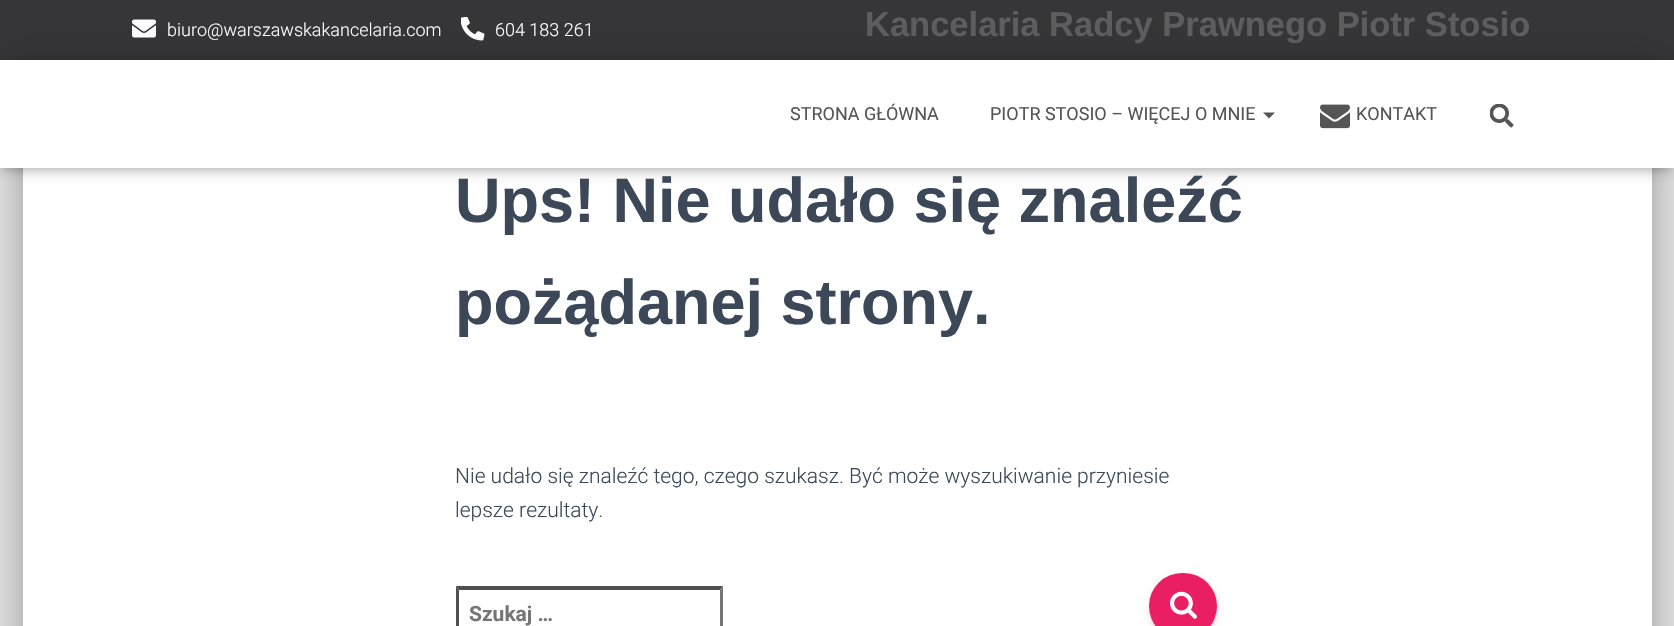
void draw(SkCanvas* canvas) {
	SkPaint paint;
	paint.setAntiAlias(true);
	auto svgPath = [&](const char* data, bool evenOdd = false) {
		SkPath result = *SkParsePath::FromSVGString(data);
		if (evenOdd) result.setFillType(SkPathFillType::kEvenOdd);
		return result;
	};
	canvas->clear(0xffe5e5e5);
	paint.setColor(0xff363537);
	canvas->drawRect(SkRect::MakeXYWH(0, 0, 1674, 60), paint);
	canvas->drawImageRect(SkImages::DeferredFromEncodedData(SkData::MakeFromFileName("img1.png")), SkRect::MakeXYWH(132, 19, 24, 19), SkSamplingOptions());
	SkFont f1(fontMgr->matchFamilyStyle("Roboto", SkFontStyle(300, SkFontStyle::kNormal_Width, SkFontStyle::kUpright_Slant)), 18);
	f1.setSubpixel(true);
	paint.setColor(0xffffffff);
	canvas->drawString("biuro@warszawskakancelaria.com", 167, 36, f1, paint);
	canvas->drawImageRect(SkImages::DeferredFromEncodedData(SkData::MakeFromFileName("img2.png")), SkRect::MakeXYWH(461, 17, 24, 24), SkSamplingOptions());
	canvas->drawString("604 183 261", 495, 36, f1, paint);
	SkFont f2(fontMgr->matchFamilyStyle("Liberation Sans", SkFontStyle::Bold()), 34.5);
	f2.setSubpixel(true);
	paint.setColor(0xff5e5e5e);
	canvas->drawString("Kancelaria Radcy Prawnego Piotr Stosio", 865, 36, f2, paint);
	paint.setColor(0x33000000);
	paint.setMaskFilter(SkMaskFilter::MakeBlur(kNormal_SkBlurStyle, 7.5));
	canvas->drawRoundRect(SkRect::MakeXYWH(30, 80, 1614, 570), 1.5, 1.5, paint);
	paint.setMaskFilter(nullptr);
	paint.setColor(0x1f000000);
	paint.setMaskFilter(SkMaskFilter::MakeBlur(kNormal_SkBlurStyle, 22.5));
	canvas->drawRoundRect(SkRect::MakeXYWH(15, 62, 1644, 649), 17, 17, paint);
	paint.setMaskFilter(nullptr);
	paint.setColor(0x24000000);
	paint.setMaskFilter(SkMaskFilter::MakeBlur(kNormal_SkBlurStyle, 18));
	canvas->drawRoundRect(SkRect::MakeXYWH(20, 81, 1635, 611), 12, 12, paint);
	paint.setMaskFilter(nullptr);
	paint.setColor(0xffffffff);
	canvas->drawRect(SkRect::MakeXYWH(23, 168, 1629, 458), paint);
	paint.setColor(0x1a000000);
	paint.setMaskFilter(SkMaskFilter::MakeBlur(kNormal_SkBlurStyle, 4));
	canvas->drawRect(SkRect::MakeXYWH(3, 69, 1668, 102), paint);
	paint.setMaskFilter(nullptr);
	paint.setColor(0x1f000000);
	paint.setMaskFilter(SkMaskFilter::MakeBlur(kNormal_SkBlurStyle, 7.5));
	canvas->drawRect(SkRect::MakeXYWH(0, 62, 1674, 108), paint);
	paint.setMaskFilter(nullptr);
	paint.setColor(0x6b000000);
	paint.setMaskFilter(SkMaskFilter::MakeBlur(kNormal_SkBlurStyle, 7.5));
	canvas->drawRect(SkRect::MakeXYWH(9, 71, 1656, 90), paint);
	paint.setMaskFilter(nullptr);
	paint.setColor(0xffffffff);
	canvas->drawRect(SkRect::MakeXYWH(0, 60, 1674, 108), paint);
	SkFont f3(fontMgr->matchFamilyStyle("Roboto", SkFontStyle::Normal()), 18);
	f3.setSubpixel(true);
	paint.setColor(0xff555555);
	canvas->drawString("STRONA GŁÓWNA", 790, 120, f3, paint);
	canvas->drawString("PIOTR STOSIO – WIĘCEJ O MNIE", 990, 120, f3, paint);
	canvas->drawPath(svgPath("M1263 112.5H1275L1269 118.5Z"), paint);
	canvas->drawImageRect(SkImages::DeferredFromEncodedData(SkData::MakeFromFileName("img3.png")), SkRect::MakeXYWH(1320, 104, 30, 25), SkSamplingOptions());
	canvas->drawString("KONTAKT", 1356, 120, f3, paint);
	canvas->drawImageRect(SkImages::DeferredFromEncodedData(SkData::MakeFromFileName("img4.png")), SkRect::MakeXYWH(1490, 104, 24, 24), SkSamplingOptions());
	SkFont f4(fontMgr->matchFamilyStyle("Liberation Sans", SkFontStyle::Bold()), 63);
	f4.setSubpixel(true);
	paint.setColor(0xff3c4858);
	canvas->drawString("Ups! Nie udało się znaleźć", 455, 222, f4, paint);
	canvas->drawString("pożądanej strony.", 455, 324, f4, paint);
	SkFont f5(fontMgr->matchFamilyStyle("Roboto", SkFontStyle(300, SkFontStyle::kNormal_Width, SkFontStyle::kUpright_Slant)), 21);
	f5.setSubpixel(true);
	canvas->drawString("Nie udało się znaleźć tego, czego szukasz. Być może wyszukiwanie przyniesie", 455, 483, f5, paint);
	canvas->drawString("lepsze rezultaty.", 455, 517, f5, paint);
	paint.setColor(0xff4f4f4f);
	canvas->drawPath(svgPath("M456 586H723L720 590H459Z"), paint);
	paint.setColor(0xff767676);
	canvas->drawPath(svgPath("M723 586V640L720 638V590Z"), paint);
	paint.setColor(0xff4f4f4f);
	canvas->drawPath(svgPath("M456 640V586L459 590V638Z"), paint);
	SkFont f6(fontMgr->matchFamilyStyle("Roboto", SkFontStyle::Bold()), 21);
	f6.setSubpixel(true);
	paint.setColor(0xff757575);
	canvas->drawString("Szukaj …", 469, 621, f6, paint);
	paint.setColor(0x1fe91e63);
	paint.setMaskFilter(SkMaskFilter::MakeBlur(kNormal_SkBlurStyle, 4));
	canvas->drawRoundRect(SkRect::MakeXYWH(1149, 575, 68, 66), 33, 33, paint);
	paint.setMaskFilter(nullptr);
	paint.setColor(0x33e91e63);
	paint.setMaskFilter(SkMaskFilter::MakeBlur(kNormal_SkBlurStyle, 1));
	canvas->drawRoundRect(SkRect::MakeXYWH(1152, 581, 62, 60), 30, 30, paint);
	paint.setMaskFilter(nullptr);
	paint.setColor(0x24e91e63);
	paint.setMaskFilter(SkMaskFilter::MakeBlur(kNormal_SkBlurStyle, 1.5));
	canvas->drawRoundRect(SkRect::MakeXYWH(1149, 576, 68, 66), 33, 33, paint);
	paint.setMaskFilter(nullptr);
	paint.setColor(0xffe91e63);
	canvas->drawRoundRect(SkRect::MakeXYWH(1149, 573, 68, 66), 33, 33, paint);
	canvas->drawImageRect(SkImages::DeferredFromEncodedData(SkData::MakeFromFileName("img5.png")), SkRect::MakeXYWH(1170, 591, 27, 28), SkSamplingOptions());
}
